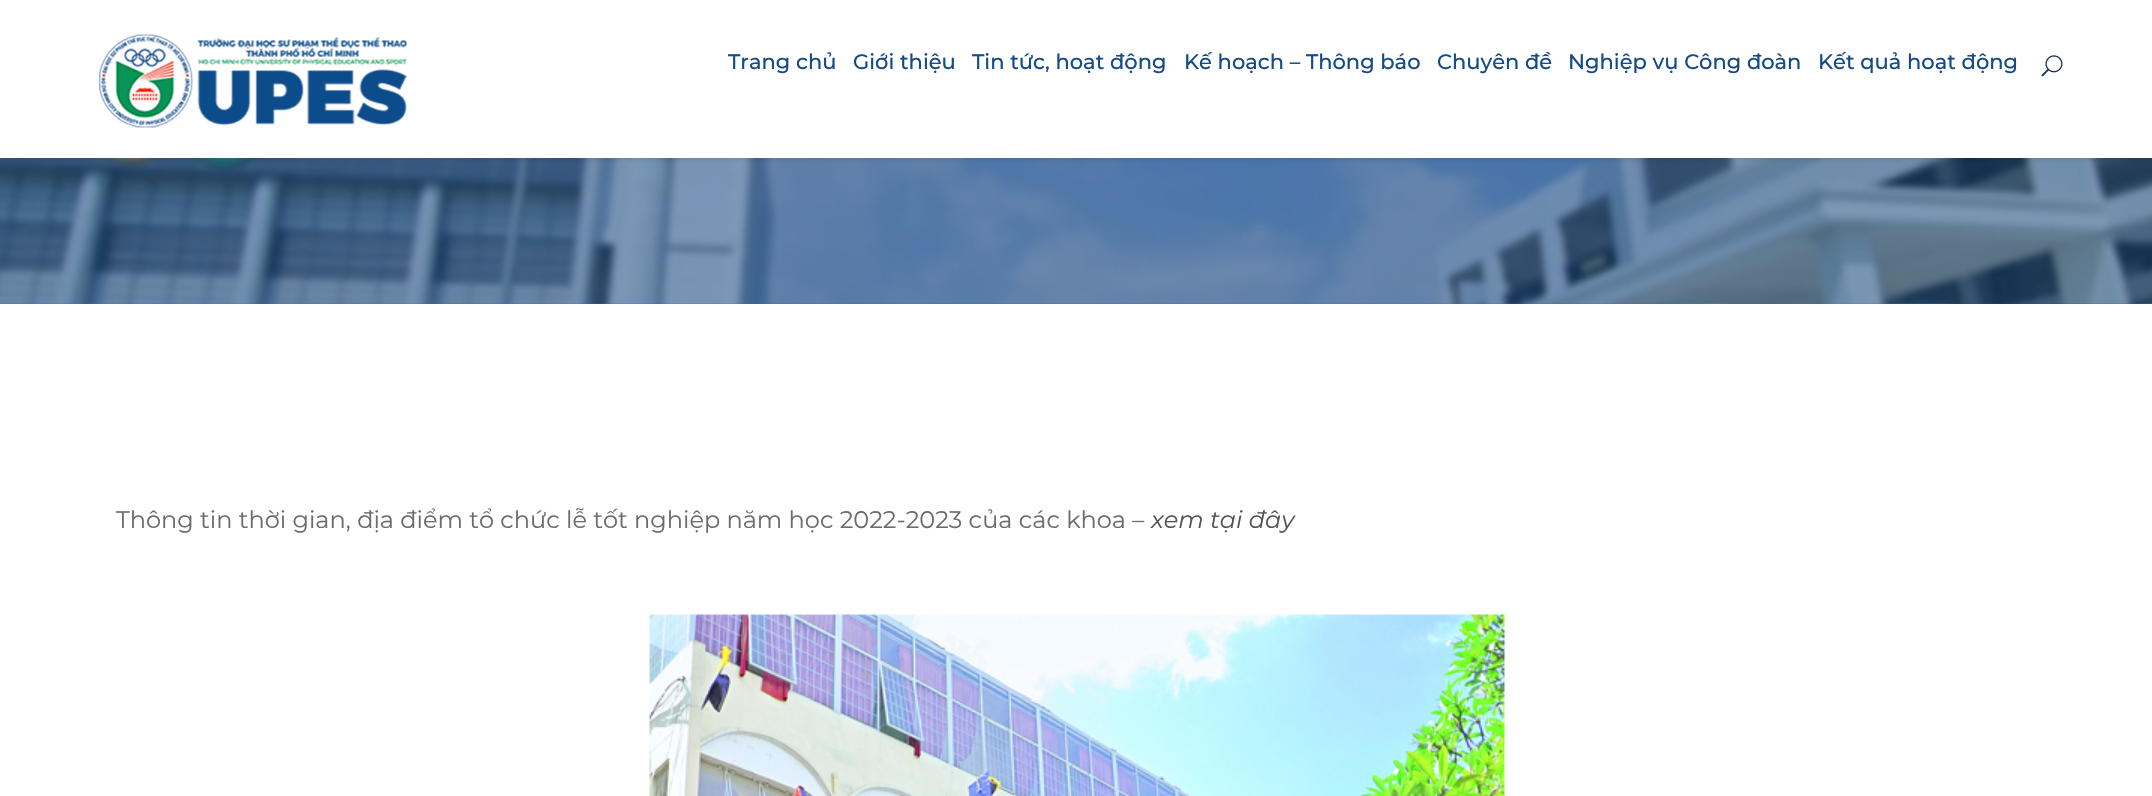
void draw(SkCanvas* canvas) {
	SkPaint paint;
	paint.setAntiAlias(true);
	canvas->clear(0xffffffff);
	canvas->drawImageRect(SkImages::DeferredFromEncodedData(SkData::MakeFromFileName("img3.png")), SkRect::MakeXYWH(0, 158, 2152, 146), SkSamplingOptions());
	paint.setColor(0x1a000000);
	paint.setMaskFilter(SkMaskFilter::MakeBlur(kNormal_SkBlurStyle, 3));
	canvas->drawRect(SkRect::MakeXYWH(0, 2, 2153, 157), paint);
	paint.setMaskFilter(nullptr);
	paint.setColor(0xffffffff);
	canvas->drawRect(SkRect::MakeXYWH(0, 0, 2152, 158), paint);
	canvas->drawImageRect(SkImages::DeferredFromEncodedData(SkData::MakeFromFileName("img1.png")), SkRect::MakeXYWH(98, 34, 309, 94), SkSamplingOptions());
	SkFont f1(fontMgr->matchFamilyStyle("Montserrat", SkFontStyle(500, SkFontStyle::kNormal_Width, SkFontStyle::kUpright_Slant)), 21);
	f1.setSubpixel(true);
	paint.setColor(0xff154b88);
	canvas->drawString("Trang chủ", 728, 69, f1, paint);
	canvas->drawString("Giới thiệu", 853, 69, f1, paint);
	canvas->drawString("Tin tức, hoạt động", 972, 69, f1, paint);
	canvas->drawString("Kế hoạch – Thông báo", 1184, 69, f1, paint);
	canvas->drawString("Chuyên đề", 1437, 69, f1, paint);
	canvas->drawString("Nghiệp vụ Công đoàn", 1568, 69, f1, paint);
	canvas->drawString("Kết quả hoạt động", 1818, 69, f1, paint);
	canvas->drawImageRect(SkImages::DeferredFromEncodedData(SkData::MakeFromFileName("img2.png")), SkRect::MakeXYWH(2041, 55, 22, 22), SkSamplingOptions());
	SkFont f2(fontMgr->matchFamilyStyle("Montserrat", SkFontStyle::Normal()), 24);
	f2.setSubpixel(true);
	paint.setColor(0xff6b6b6b);
	canvas->drawString("Thông tin thời gian, địa điểm tổ chức lễ tốt nghiệp năm học 2022-2023 của các khoa –", 116, 528, f2, paint);
	SkFont f3(fontMgr->matchFamilyStyle("Montserrat", SkFontStyle::Italic()), 24);
	f3.setSubpixel(true);
	paint.setColor(0xff545454);
	canvas->drawString("xem tại đây", 1151, 528, f3, paint);
	canvas->drawImageRect(SkImages::DeferredFromEncodedData(SkData::MakeFromFileName("img4.png")), SkRect::MakeXYWH(649, 614, 856, 182), SkSamplingOptions());
}
